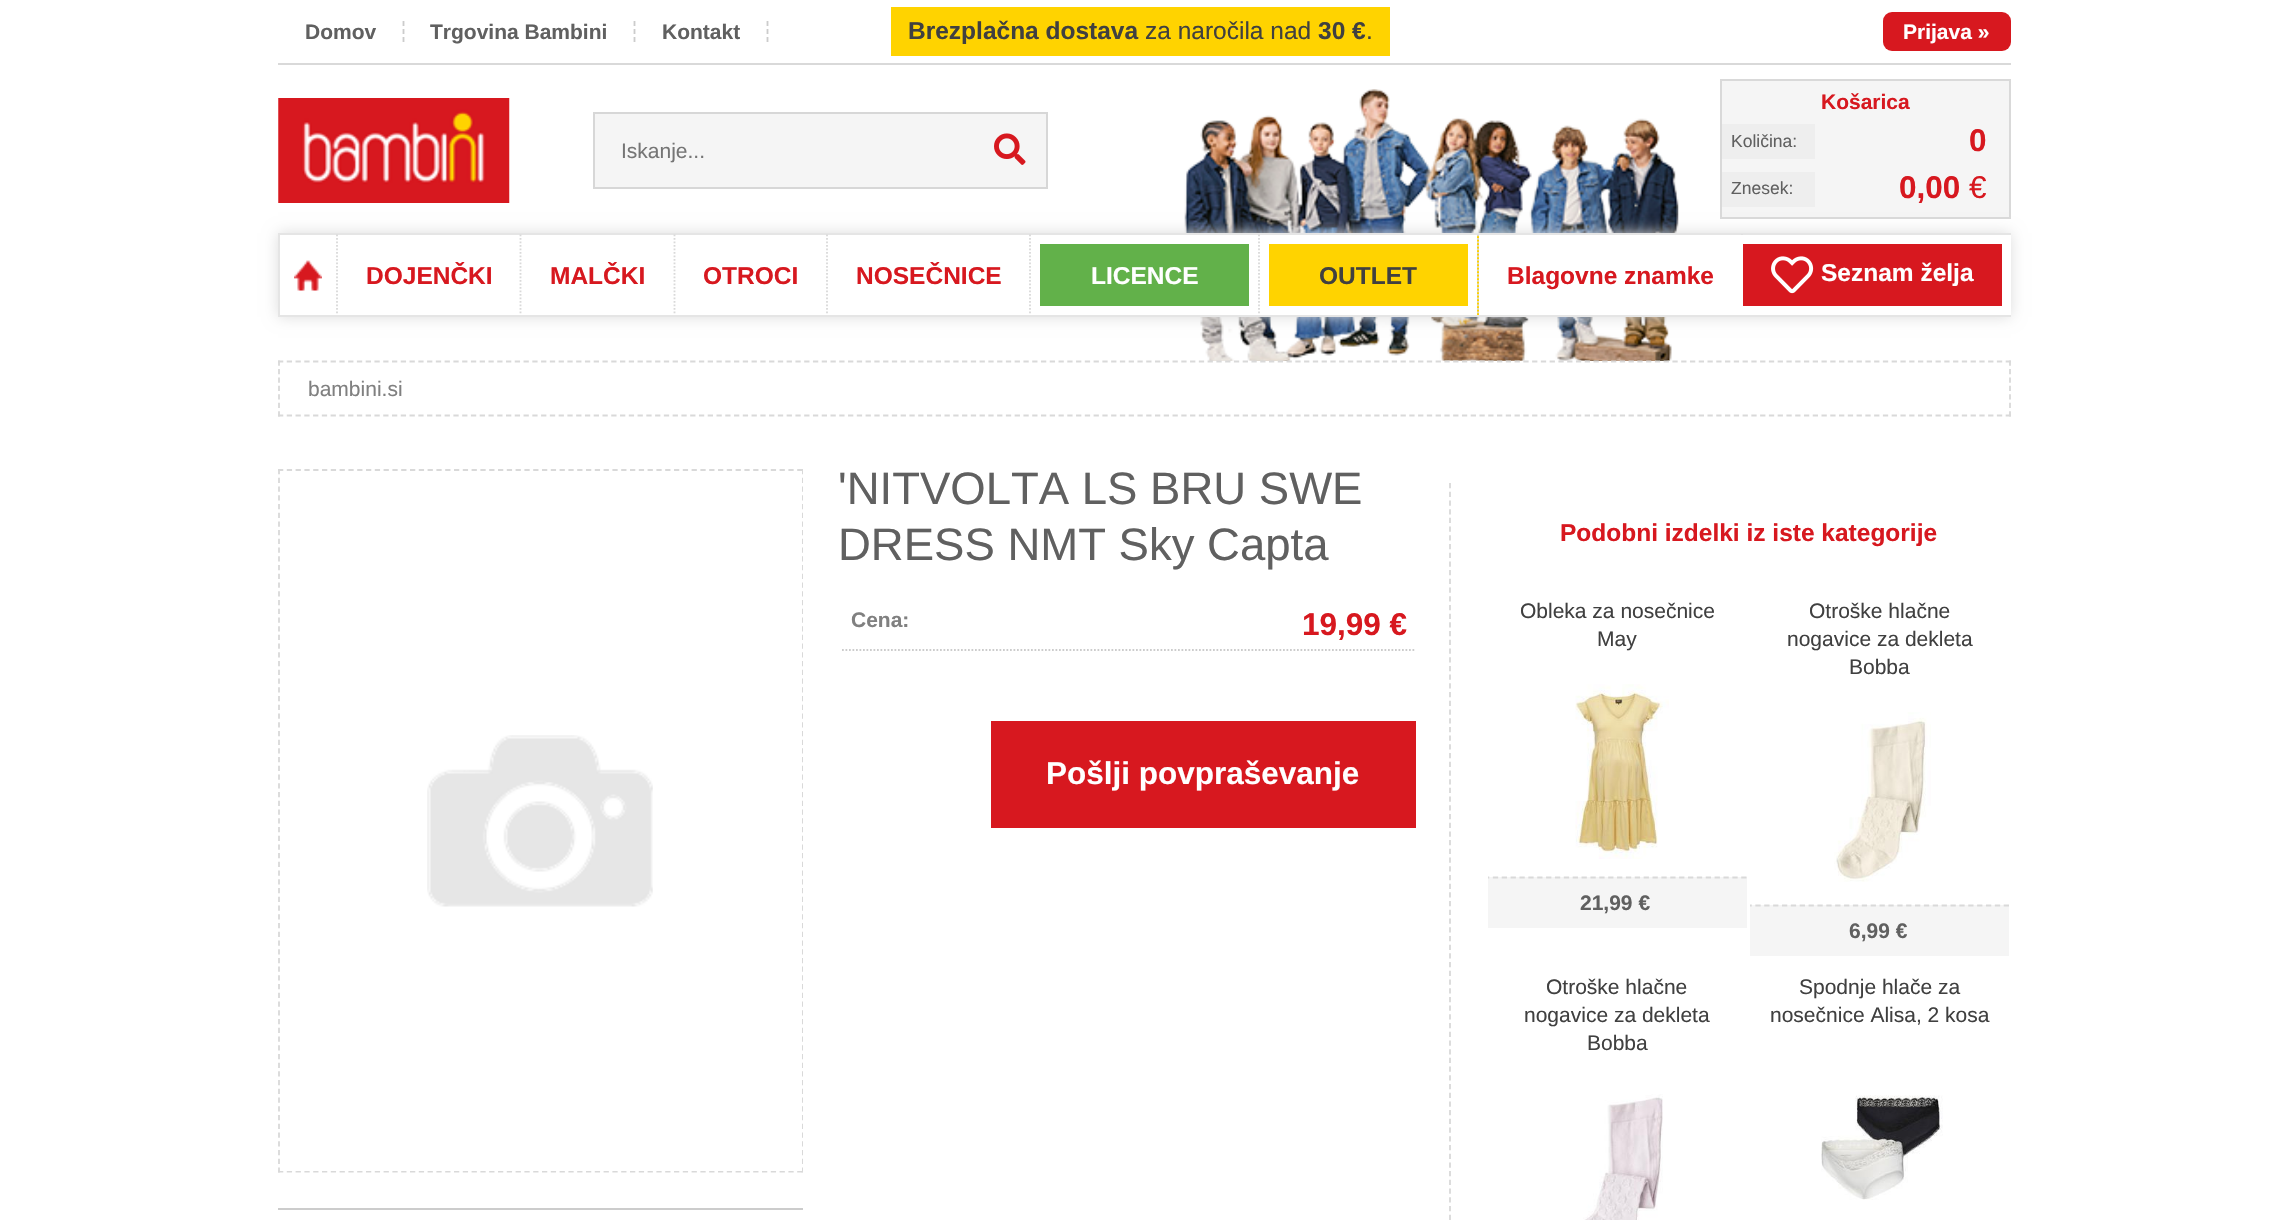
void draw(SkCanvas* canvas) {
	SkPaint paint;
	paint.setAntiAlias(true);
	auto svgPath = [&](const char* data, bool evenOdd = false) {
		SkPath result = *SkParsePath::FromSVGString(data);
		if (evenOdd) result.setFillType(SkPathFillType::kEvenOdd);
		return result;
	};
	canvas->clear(0xffffffff);
	paint.setColor(0xffd9d9d9);
	canvas->drawRect(SkRect::MakeXYWH(278, 63, 1733, 2), paint);
	paint.setStroke(true);
	paint.setStrokeWidth(1.8);
	paint.setColor(0xffcccccc);
	canvas->drawPath(svgPath("M403.5 21V26M403.5 29V34M403.5 37V42"), paint);
	SkFont f1(fontMgr->matchFamilyStyle("Liberation Sans", SkFontStyle::Bold()), 21);
	f1.setSubpixel(true);
	paint.setStroke(false);
	paint.setColor(0xff606060);
	canvas->drawString("Domov", 305, 39, f1, paint);
	paint.setStroke(true);
	paint.setColor(0xffcccccc);
	canvas->drawPath(svgPath("M634.5 21V26M634.5 29V34M634.5 37V42"), paint);
	paint.setStroke(false);
	paint.setColor(0xff606060);
	canvas->drawString("Trgovina Bambini", 430, 39, f1, paint);
	paint.setStroke(true);
	paint.setColor(0xffcccccc);
	canvas->drawPath(svgPath("M767.5 21V26M767.5 29V34M767.5 37V42"), paint);
	paint.setStroke(false);
	paint.setColor(0xff606060);
	canvas->drawString("Kontakt", 662, 39, f1, paint);
	paint.setColor(0xffffd300);
	canvas->drawRect(SkRect::MakeXYWH(891, 7, 499, 49), paint);
	SkFont f2(fontMgr->matchFamilyStyle("Liberation Sans", SkFontStyle::Bold()), 24.5);
	f2.setSubpixel(true);
	paint.setColor(0xff404040);
	canvas->drawString("Brezplačna dostava", 908, 39, f2, paint);
	SkFont f3(fontMgr->matchFamilyStyle("Liberation Sans", SkFontStyle::Normal()), 24.5);
	f3.setSubpixel(true);
	canvas->drawString("za naročila nad", 1145, 39, f3, paint);
	canvas->drawString("30 €", 1318, 39, f2, paint);
	canvas->drawString(".", 1366, 39, f3, paint);
	paint.setColor(0xffd7181f);
	canvas->drawRoundRect(SkRect::MakeXYWH(1883, 12, 128, 39), 9, 9, paint);
	paint.setColor(0xffffffff);
	canvas->drawString("Prijava »", 1903, 39, f1, paint);
	canvas->drawImageRect(SkImages::DeferredFromEncodedData(SkData::MakeFromFileName("img1.png")), SkRect::MakeXYWH(278, 98, 232, 105), SkSamplingOptions());
	paint.setColor(0xfff5f5f5);
	canvas->drawRect(SkRect::MakeXYWH(594, 113, 453, 75), paint);
	paint.setStroke(true);
	paint.setStrokeWidth(2);
	paint.setColor(0xffd7d7d7);
	canvas->drawRect(SkRect::MakeXYWH(594, 113, 453, 75), paint);
	SkFont f4(fontMgr->matchFamilyStyle("Liberation Sans", SkFontStyle::Normal()), 21);
	f4.setSubpixel(true);
	paint.setStroke(false);
	paint.setColor(0xff757575);
	canvas->drawString("Iskanje...", 621, 158, f4, paint);
	canvas->drawImageRect(SkImages::DeferredFromEncodedData(SkData::MakeFromFileName("img2.png")), SkRect::MakeXYWH(994, 133, 32, 32), SkSamplingOptions());
	canvas->drawImageRect(SkImages::DeferredFromEncodedData(SkData::MakeFromFileName("img3.png")), SkRect::MakeXYWH(1184, 89, 495, 272), SkSamplingOptions());
	paint.setColor(0xfff5f5f5);
	canvas->drawRect(SkRect::MakeXYWH(1721, 80, 289, 138), paint);
	paint.setStroke(true);
	paint.setColor(0xffd9d9d9);
	canvas->drawRect(SkRect::MakeXYWH(1721, 80, 289, 138), paint);
	paint.setStroke(false);
	paint.setColor(0xffd7181f);
	canvas->drawString("Košarica", 1821, 109, f1, paint);
	paint.setColor(0xffeeeeee);
	canvas->drawRect(SkRect::MakeXYWH(1722, 124, 93, 35), paint);
	SkFont f5(fontMgr->matchFamilyStyle("Liberation Sans", SkFontStyle::Normal()), 17.5);
	f5.setSubpixel(true);
	paint.setColor(0xff606060);
	canvas->drawString("Količina:", 1731, 147, f5, paint);
	SkFont f6(fontMgr->matchFamilyStyle("Liberation Sans", SkFontStyle::Bold()), 31.5);
	f6.setSubpixel(true);
	paint.setColor(0xffd7181f);
	canvas->drawString("0", 1969, 151, f6, paint);
	paint.setColor(0xffeeeeee);
	canvas->drawRect(SkRect::MakeXYWH(1722, 172, 93, 35), paint);
	paint.setColor(0xff606060);
	canvas->drawString("Znesek:", 1731, 194, f5, paint);
	paint.setColor(0xffd7181f);
	canvas->drawString("0,00", 1899, 198, f6, paint);
	SkFont f7(fontMgr->matchFamilyStyle("Liberation Sans", SkFontStyle::Normal()), 31.5);
	f7.setSubpixel(true);
	canvas->drawString("€", 1969, 198, f7, paint);
	canvas->save();
	canvas->clipPath(svgPath("M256 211H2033V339H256ZM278 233H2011V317H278Z", true), true);
	paint.setColor(0xffdddddd);
	paint.setMaskFilter(SkMaskFilter::MakeBlur(kNormal_SkBlurStyle, 7));
	canvas->drawRect(SkRect::MakeXYWH(278, 233, 1733, 84), paint);
	paint.setMaskFilter(nullptr);
	canvas->restore();
	paint.setStroke(true);
	paint.setColor(0xffe5e5e5);
	canvas->drawRect(SkRect::MakeXYWH(279, 234, 1731, 82), paint);
	paint.setStrokeWidth(1.8);
	paint.setColor(0xffd9d9d9);
	paint.setPathEffect(SkDashPathEffect::Make({{1.75f, 1.75f}}, 0));
	canvas->drawPath(svgPath("M337 234.5V315"), paint);
	paint.setPathEffect(nullptr);
	canvas->drawImageRect(SkImages::DeferredFromEncodedData(SkData::MakeFromFileName("img4.png")), SkRect::MakeXYWH(294, 260, 28, 31), SkSamplingOptions());
	paint.setPathEffect(SkDashPathEffect::Make({{1.75f, 1.75f}}, 0));
	canvas->drawPath(svgPath("M520.5 234.5V315"), paint);
	paint.setPathEffect(nullptr);
	paint.setStroke(false);
	paint.setColor(0xffd7181f);
	canvas->drawString("DOJENČKI", 366, 284, f2, paint);
	paint.setStroke(true);
	paint.setColor(0xffd9d9d9);
	paint.setPathEffect(SkDashPathEffect::Make({{1.75f, 1.75f}}, 0));
	canvas->drawPath(svgPath("M674.5 234.5V315"), paint);
	paint.setPathEffect(nullptr);
	paint.setStroke(false);
	paint.setColor(0xffd7181f);
	canvas->drawString("MALČKI", 550, 284, f2, paint);
	paint.setStroke(true);
	paint.setColor(0xffd9d9d9);
	paint.setPathEffect(SkDashPathEffect::Make({{1.75f, 1.75f}}, 0));
	canvas->drawPath(svgPath("M827 234.5V315"), paint);
	paint.setPathEffect(nullptr);
	paint.setStroke(false);
	paint.setColor(0xffd7181f);
	canvas->drawString("OTROCI", 703, 284, f2, paint);
	paint.setStroke(true);
	paint.setColor(0xffd9d9d9);
	paint.setPathEffect(SkDashPathEffect::Make({{1.75f, 1.75f}}, 0));
	canvas->drawPath(svgPath("M1030 234.5V315"), paint);
	paint.setPathEffect(nullptr);
	paint.setStroke(false);
	paint.setColor(0xffd7181f);
	canvas->drawString("NOSEČNICE", 856, 284, f2, paint);
	paint.setColor(0xffffffff);
	canvas->drawRect(SkRect::MakeXYWH(1258, 235, 2, 80), paint);
	paint.setStroke(true);
	paint.setColor(0xffd9d9d9);
	paint.setPathEffect(SkDashPathEffect::Make({{1.75f, 1.75f}}, 0));
	canvas->drawPath(svgPath("M1259 234.5V315"), paint);
	paint.setPathEffect(nullptr);
	paint.setStroke(false);
	paint.setColor(0xff62b14a);
	canvas->drawRect(SkRect::MakeXYWH(1035.5, 239.5, 218, 71), paint);
	paint.setStroke(true);
	paint.setStrokeWidth(9);
	paint.setColor(0xffffffff);
	canvas->drawRect(SkRect::MakeXYWH(1035.5, 239.5, 218, 71), paint);
	paint.setStroke(false);
	canvas->drawString("LICENCE", 1091, 284, f2, paint);
	paint.setColor(0xffffd300);
	canvas->drawRect(SkRect::MakeXYWH(1269, 235, 210, 80), paint);
	paint.setStroke(true);
	paint.setStrokeWidth(1.8);
	paint.setColor(0xffd9d9d9);
	paint.setPathEffect(SkDashPathEffect::Make({{1.75f, 1.75f}}, 0));
	canvas->drawPath(svgPath("M1478 234.5V315"), paint);
	paint.setPathEffect(nullptr);
	paint.setStrokeWidth(9);
	paint.setColor(0xffffffff);
	canvas->drawRect(SkRect::MakeXYWH(1264.5, 239.5, 208, 71), paint);
	paint.setStroke(false);
	paint.setColor(0xff404040);
	canvas->drawString("OUTLET", 1319, 284, f2, paint);
	paint.setColor(0xffffffff);
	canvas->drawRect(SkRect::MakeXYWH(1479, 235, 196, 80), paint);
	paint.setStroke(true);
	paint.setStrokeWidth(1.8);
	paint.setColor(0xffd9d9d9);
	paint.setPathEffect(SkDashPathEffect::Make({{1.75f, 1.75f}}, 0));
	canvas->drawPath(svgPath("M1742 234.5V315"), paint);
	paint.setPathEffect(nullptr);
	paint.setStroke(false);
	paint.setColor(0xffd7181f);
	canvas->drawString("Blagovne znamke", 1507, 284, f2, paint);
	canvas->drawRect(SkRect::MakeXYWH(1738.5, 239.5, 268, 71), paint);
	paint.setStroke(true);
	paint.setStrokeWidth(9);
	paint.setColor(0xffffffff);
	canvas->drawRect(SkRect::MakeXYWH(1738.5, 239.5, 268, 71), paint);
	canvas->drawImageRect(SkImages::DeferredFromEncodedData(SkData::MakeFromFileName("img5.png")), SkRect::MakeXYWH(1771, 256, 43, 38), SkSamplingOptions());
	paint.setStroke(false);
	canvas->drawString("Seznam želja", 1821, 281, f2, paint);
	paint.setStroke(true);
	paint.setStrokeWidth(1.8);
	paint.setColor(0xffd9d9d9);
	paint.setPathEffect(SkDashPathEffect::Make({{5.25f, 3.52f}}, 0));
	canvas->drawPath(svgPath("M278 361.5H2011"), paint);
	paint.setPathEffect(nullptr);
	paint.setPathEffect(SkDashPathEffect::Make({{5.25f, 3.2f}}, 0));
	canvas->drawPath(svgPath("M2010 360.5V416.5"), paint);
	paint.setPathEffect(nullptr);
	paint.setPathEffect(SkDashPathEffect::Make({{5.25f, 3.52f}}, 0));
	canvas->drawPath(svgPath("M278 415.5H2011"), paint);
	paint.setPathEffect(nullptr);
	paint.setPathEffect(SkDashPathEffect::Make({{5.25f, 3.2f}}, 0));
	canvas->drawPath(svgPath("M279 360.5V416.5"), paint);
	paint.setPathEffect(nullptr);
	paint.setStroke(false);
	paint.setColor(0xff808080);
	canvas->drawString("bambini.si", 308, 396, f4, paint);
	paint.setStroke(true);
	paint.setColor(0xffd9d9d9);
	paint.setPathEffect(SkDashPathEffect::Make({{5.25f, 3.55f}}, 0));
	canvas->drawPath(svgPath("M278 470H803"), paint);
	paint.setPathEffect(nullptr);
	canvas->save();
	canvas->clipRect(SkRect::MakeXYWH(278, 469, 525, 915));
	paint.setPathEffect(SkDashPathEffect::Make({{5.25f, 3.48f}}, 0));
	canvas->drawPath(svgPath("M802.5 469V1172.5"), paint);
	paint.setPathEffect(nullptr);
	canvas->restore();
	paint.setPathEffect(SkDashPathEffect::Make({{5.25f, 3.55f}}, 0));
	canvas->drawPath(svgPath("M278 1171.5H803"), paint);
	paint.setPathEffect(nullptr);
	paint.setPathEffect(SkDashPathEffect::Make({{5.25f, 3.48f}}, 0));
	canvas->drawPath(svgPath("M279 469V1172.5"), paint);
	paint.setPathEffect(nullptr);
	paint.setStroke(false);
	paint.setColor(0xffffffff);
	canvas->drawRect(SkRect::MakeXYWH(280, 471, 522, 700), paint);
	canvas->drawImageRect(SkImages::DeferredFromEncodedData(SkData::MakeFromFileName("img6.png")), SkRect::MakeXYWH(427, 735, 226, 172), SkSamplingOptions());
	paint.setColor(0xffcccccc);
	canvas->drawRect(SkRect::MakeXYWH(278, 1208, 525, 2), paint);
	SkFont f8(fontMgr->matchFamilyStyle("Liberation Sans", SkFontStyle::Normal()), 45.5);
	f8.setSubpixel(true);
	paint.setColor(0xff606060);
	canvas->drawString("'NITVOLTA LS BRU SWE", 838, 504, f8, paint);
	canvas->drawString("DRESS NMT Sky Capta", 838, 560, f8, paint);
	paint.setStroke(true);
	paint.setColor(0xffcccccc);
	paint.setPathEffect(SkDashPathEffect::Make({{1.75f, 1.75f}}, 0));
	canvas->drawPath(svgPath("M842 650H1416"), paint);
	paint.setPathEffect(nullptr);
	paint.setStroke(false);
	paint.setColor(0xff808080);
	canvas->drawString("Cena:", 851, 627, f1, paint);
	paint.setColor(0xffd7181f);
	canvas->drawString("19,99 €", 1302, 635, f6, paint);
	canvas->drawRect(SkRect::MakeXYWH(991, 721, 425, 107), paint);
	paint.setColor(0xffffffff);
	canvas->drawString("Pošlji povpraševanje", 1046, 784, f6, paint);
	paint.setStroke(true);
	paint.setColor(0xffd9d9d9);
	paint.setPathEffect(SkDashPathEffect::Make({{5.25f, 3.46f}}, 0));
	canvas->drawPath(svgPath("M1450 483V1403.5"), paint);
	paint.setPathEffect(nullptr);
	paint.setStroke(false);
	paint.setColor(0xffd7181f);
	canvas->drawString("Podobni izdelki iz iste kategorije", 1560, 541, f2, paint);
	paint.setColor(0xff404040);
	canvas->drawString("Obleka za nosečnice", 1520, 618, f4, paint);
	canvas->drawString("May", 1597, 646, f4, paint);
	canvas->drawImageRect(SkImages::DeferredFromEncodedData(SkData::MakeFromFileName("img7.png")), SkRect::MakeXYWH(1575, 684, 94, 175), SkSamplingOptions());
	paint.setColor(0xfff5f5f5);
	canvas->drawRect(SkRect::MakeXYWH(1488, 877, 259, 51), paint);
	canvas->save();
	canvas->clipRect(SkRect::MakeXYWH(1488, 583, 259, 345));
	paint.setStroke(true);
	paint.setColor(0xffd9d9d9);
	paint.setPathEffect(SkDashPathEffect::Make({{5.25f, 3.62f}}, 0));
	canvas->drawPath(svgPath("M1484 877.5H1746.5"), paint);
	paint.setPathEffect(nullptr);
	canvas->restore();
	paint.setStroke(false);
	paint.setColor(0xff606060);
	canvas->drawString("21,99 €", 1580, 910, f1, paint);
	paint.setColor(0xff404040);
	canvas->drawString("Otroške hlačne", 1809, 618, f4, paint);
	canvas->drawString("nogavice za dekleta", 1787, 646, f4, paint);
	canvas->drawString("Bobba", 1849, 674, f4, paint);
	canvas->drawImageRect(SkImages::DeferredFromEncodedData(SkData::MakeFromFileName("img8.png")), SkRect::MakeXYWH(1834, 712, 97, 170), SkSamplingOptions());
	paint.setColor(0xfff5f5f5);
	canvas->drawRect(SkRect::MakeXYWH(1750, 905, 259, 51), paint);
	canvas->save();
	canvas->clipRect(SkRect::MakeXYWH(1750, 583, 259, 373));
	paint.setStroke(true);
	paint.setColor(0xffd9d9d9);
	paint.setPathEffect(SkDashPathEffect::Make({{5.25f, 3.62f}}, 0));
	canvas->drawPath(svgPath("M1746.5 905.5H2009"), paint);
	paint.setPathEffect(nullptr);
	canvas->restore();
	paint.setStroke(false);
	paint.setColor(0xff606060);
	canvas->drawString("6,99 €", 1849, 938, f1, paint);
	paint.setColor(0xff404040);
	canvas->drawString("Otroške hlačne", 1546, 994, f4, paint);
	canvas->drawString("nogavice za dekleta", 1524, 1022, f4, paint);
	canvas->drawString("Bobba", 1587, 1050, f4, paint);
	canvas->drawImageRect(SkImages::DeferredFromEncodedData(SkData::MakeFromFileName("img9.png")), SkRect::MakeXYWH(1583, 1094, 80, 126), SkSamplingOptions());
	canvas->drawString("Spodnje hlače za", 1799, 994, f4, paint);
	canvas->drawString("nosečnice Alisa, 2 kosa", 1770, 1022, f4, paint);
	canvas->drawImageRect(SkImages::DeferredFromEncodedData(SkData::MakeFromFileName("img10.png")), SkRect::MakeXYWH(1821, 1095, 122, 105), SkSamplingOptions());
}
